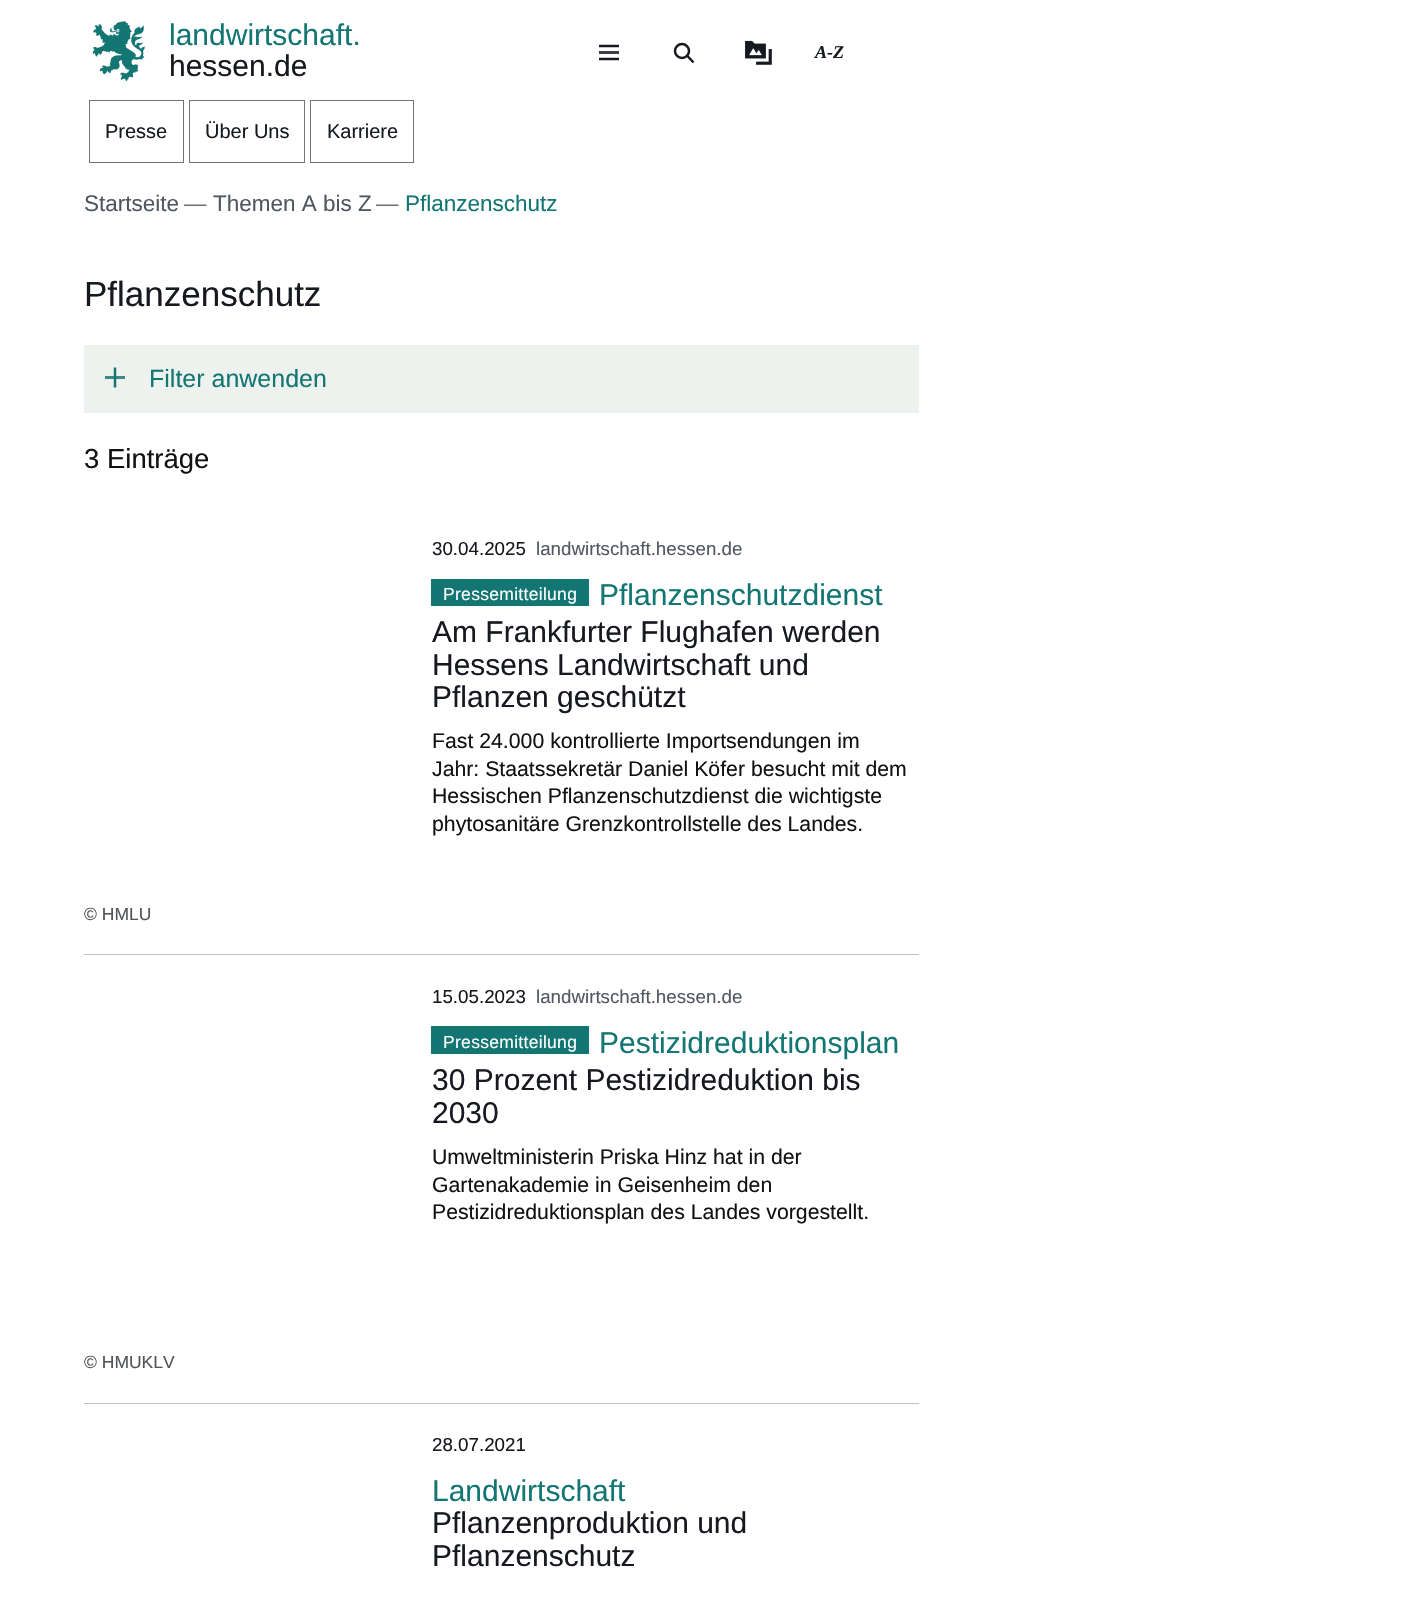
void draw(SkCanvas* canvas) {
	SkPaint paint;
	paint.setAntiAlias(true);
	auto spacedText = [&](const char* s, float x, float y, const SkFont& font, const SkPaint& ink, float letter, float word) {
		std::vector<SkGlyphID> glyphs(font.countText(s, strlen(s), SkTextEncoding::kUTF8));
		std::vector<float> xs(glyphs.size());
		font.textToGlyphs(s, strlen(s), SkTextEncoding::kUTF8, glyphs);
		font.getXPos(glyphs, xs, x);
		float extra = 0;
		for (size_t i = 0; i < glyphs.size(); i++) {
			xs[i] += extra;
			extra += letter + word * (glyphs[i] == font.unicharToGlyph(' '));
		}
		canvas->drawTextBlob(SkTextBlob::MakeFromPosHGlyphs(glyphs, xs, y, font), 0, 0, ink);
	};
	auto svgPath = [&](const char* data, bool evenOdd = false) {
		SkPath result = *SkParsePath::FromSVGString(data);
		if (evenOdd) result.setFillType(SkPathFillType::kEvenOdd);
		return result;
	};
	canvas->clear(0xffffffff);
	canvas->drawImageRect(SkImages::DeferredFromEncodedData(SkData::MakeFromFileName("img1.png")), SkRect::MakeXYWH(92, 21, 53, 60), SkSamplingOptions());
	SkFont f1(fontMgr->matchFamilyStyle("Liberation Sans", SkFontStyle::Normal()), 30);
	f1.setSubpixel(true);
	paint.setColor(0xff137673);
	canvas->drawString("landwirtschaft.", 169, 45, f1, paint);
	paint.setColor(0xff16191f);
	canvas->drawString("hessen.de", 169, 76, f1, paint);
	paint.setStroke(true);
	paint.setStrokeWidth(2.5);
	canvas->drawPath(svgPath("M599 46H619"), paint);
	paint.setStroke(false);
	paint.setColor(0xff3d3f44);
	canvas->drawRect(SkRect::MakeXYWH(599, 51, 20, 3), paint);
	paint.setStroke(true);
	paint.setColor(0xff16191f);
	canvas->drawPath(svgPath("M599 59H619"), paint);
	canvas->drawPath(svgPath("M687 55.5L693.5 62.5"), paint);
	canvas->drawCircle(682, 51, 7, paint);
	canvas->drawImageRect(SkImages::DeferredFromEncodedData(SkData::MakeFromFileName("img2.png")), SkRect::MakeXYWH(745, 40, 27, 25), SkSamplingOptions());
	SkFont f2(fontMgr->matchFamilyStyle("Liberation Serif", SkFontStyle::BoldItalic()), 18);
	f2.setSubpixel(true);
	paint.setStroke(false);
	canvas->drawString("A-Z", 815, 58, f2, paint);
	paint.setStroke(true);
	paint.setStrokeWidth(1);
	paint.setColor(0xff737373);
	canvas->drawRect(SkRect::MakeXYWH(89.5, 100.5, 94, 62), paint);
	SkFont f3(fontMgr->matchFamilyStyle("Liberation Sans", SkFontStyle::Normal()), 20);
	f3.setSubpixel(true);
	paint.setStroke(false);
	paint.setColor(0xff16191f);
	canvas->drawString("Presse", 105, 138, f3, paint);
	paint.setStroke(true);
	paint.setColor(0xff737373);
	canvas->drawRect(SkRect::MakeXYWH(189.5, 100.5, 115, 62), paint);
	paint.setStroke(false);
	paint.setColor(0xff16191f);
	canvas->drawString("Über Uns", 205, 138, f3, paint);
	paint.setStroke(true);
	paint.setColor(0xff737373);
	canvas->drawRect(SkRect::MakeXYWH(310.5, 100.5, 103, 62), paint);
	paint.setStroke(false);
	paint.setColor(0xff16191f);
	canvas->drawString("Karriere", 327, 138, f3, paint);
	SkFont f4(fontMgr->matchFamilyStyle("Liberation Sans", SkFontStyle::Normal()), 22.5);
	f4.setSubpixel(true);
	paint.setColor(0xff515760);
	canvas->drawString("Startseite", 84, 211, f4, paint);
	paint.setColor(0xff737373);
	canvas->drawString("—", 184, 211, f4, paint);
	paint.setColor(0xff515760);
	canvas->drawString("Themen A bis Z", 213, 211, f4, paint);
	paint.setColor(0xff737373);
	canvas->drawString("—", 376, 211, f4, paint);
	paint.setColor(0xff137673);
	canvas->drawString("Pflanzenschutz", 405, 211, f4, paint);
	SkFont f5(fontMgr->matchFamilyStyle("Liberation Sans", SkFontStyle::Normal()), 35);
	f5.setSubpixel(true);
	paint.setColor(0xff16191f);
	canvas->drawString("Pflanzenschutz", 84, 306, f5, paint);
	paint.setColor(0xffeef2ee);
	canvas->drawRect(SkRect::MakeXYWH(84, 345, 835, 68), paint);
	paint.setColor(0xff388b88);
	canvas->drawRect(SkRect::MakeXYWH(105, 376, 20, 3), paint);
	paint.setStroke(true);
	paint.setStrokeWidth(2.5);
	paint.setColor(0xff137673);
	canvas->drawPath(svgPath("M115 367.5V387.5"), paint);
	SkFont f6(fontMgr->matchFamilyStyle("Liberation Sans", SkFontStyle::Normal()), 25);
	f6.setSubpixel(true);
	paint.setStroke(false);
	canvas->drawString("Filter anwenden", 149, 387, f6, paint);
	SkFont f7(fontMgr->matchFamilyStyle("Liberation Sans", SkFontStyle::Normal()), 27.5);
	f7.setSubpixel(true);
	paint.setColor(0xff121212);
	canvas->drawString("3 Einträge", 84, 468, f7, paint);
	paint.setColor(0xffbec0c3);
	canvas->drawRect(SkRect::MakeXYWH(84, 954, 835, 1), paint);
	SkFont f8(fontMgr->matchFamilyStyle("Liberation Sans", SkFontStyle::Normal()), 18.75);
	f8.setSubpixel(true);
	paint.setColor(0xff16191f);
	canvas->drawString("30.04.2025", 432, 555, f8, paint);
	paint.setColor(0xff515760);
	canvas->drawString("landwirtschaft.hessen.de", 536, 555, f8, paint);
	paint.setColor(0xff137673);
	canvas->drawRect(SkRect::MakeXYWH(431, 579, 158, 27), paint);
	SkFont f9(fontMgr->matchFamilyStyle("Liberation Sans", SkFontStyle::Normal()), 17.5);
	f9.setSubpixel(true);
	paint.setColor(0xffffffff);
	spacedText("Pressemitteilung", 443, 600, f9, paint, 0.3, 0);
	paint.setColor(0xff137673);
	canvas->drawString("Pflanzenschutzdienst", 599, 605, f1, paint);
	paint.setColor(0xff16191f);
	canvas->drawString("Am Frankfurter Flughafen werden", 432, 642, f1, paint);
	canvas->drawString("Hessens Landwirtschaft und", 432, 675, f1, paint);
	canvas->drawString("Pflanzen geschützt", 432, 707, f1, paint);
	SkFont f10(fontMgr->matchFamilyStyle("Liberation Sans", SkFontStyle::Normal()), 21.25);
	f10.setSubpixel(true);
	paint.setColor(0xff121212);
	canvas->drawString("Fast 24.000 kontrollierte Importsendungen im", 432, 748, f10, paint);
	canvas->drawString("Jahr: Staatssekretär Daniel Köfer besucht mit dem", 432, 776, f10, paint);
	canvas->drawString("Hessischen Pflanzenschutzdienst die wichtigste", 432, 803, f10, paint);
	canvas->drawString("phytosanitäre Grenzkontrollstelle des Landes.", 432, 831, f10, paint);
	paint.setColor(0xff505357);
	canvas->drawString("© HMLU", 84, 920, f9, paint);
	paint.setColor(0xffbec0c3);
	canvas->drawRect(SkRect::MakeXYWH(84, 1403, 835, 1), paint);
	paint.setColor(0xff16191f);
	canvas->drawString("15.05.2023", 432, 1003, f8, paint);
	paint.setColor(0xff515760);
	canvas->drawString("landwirtschaft.hessen.de", 536, 1003, f8, paint);
	paint.setColor(0xff137673);
	canvas->drawRect(SkRect::MakeXYWH(431, 1026, 158, 28), paint);
	paint.setColor(0xffffffff);
	spacedText("Pressemitteilung", 443, 1048, f9, paint, 0.3, 0);
	paint.setColor(0xff137673);
	canvas->drawString("Pestizidreduktionsplan", 599, 1053, f1, paint);
	paint.setColor(0xff16191f);
	canvas->drawString("30 Prozent Pestizidreduktion bis", 432, 1090, f1, paint);
	canvas->drawString("2030", 432, 1123, f1, paint);
	paint.setColor(0xff121212);
	canvas->drawString("Umweltministerin Priska Hinz hat in der", 432, 1164, f10, paint);
	canvas->drawString("Gartenakademie in Geisenheim den", 432, 1192, f10, paint);
	canvas->drawString("Pestizidreduktionsplan des Landes vorgestellt.", 432, 1219, f10, paint);
	paint.setColor(0xff505357);
	canvas->drawString("© HMUKLV", 84, 1368, f9, paint);
	paint.setColor(0xff16191f);
	canvas->drawString("28.07.2021", 432, 1451, f8, paint);
	paint.setColor(0xff137673);
	canvas->drawString("Landwirtschaft", 432, 1501, f1, paint);
	paint.setColor(0xff16191f);
	canvas->drawString("Pflanzenproduktion und", 432, 1533, f1, paint);
	canvas->drawString("Pflanzenschutz", 432, 1566, f1, paint);
}
